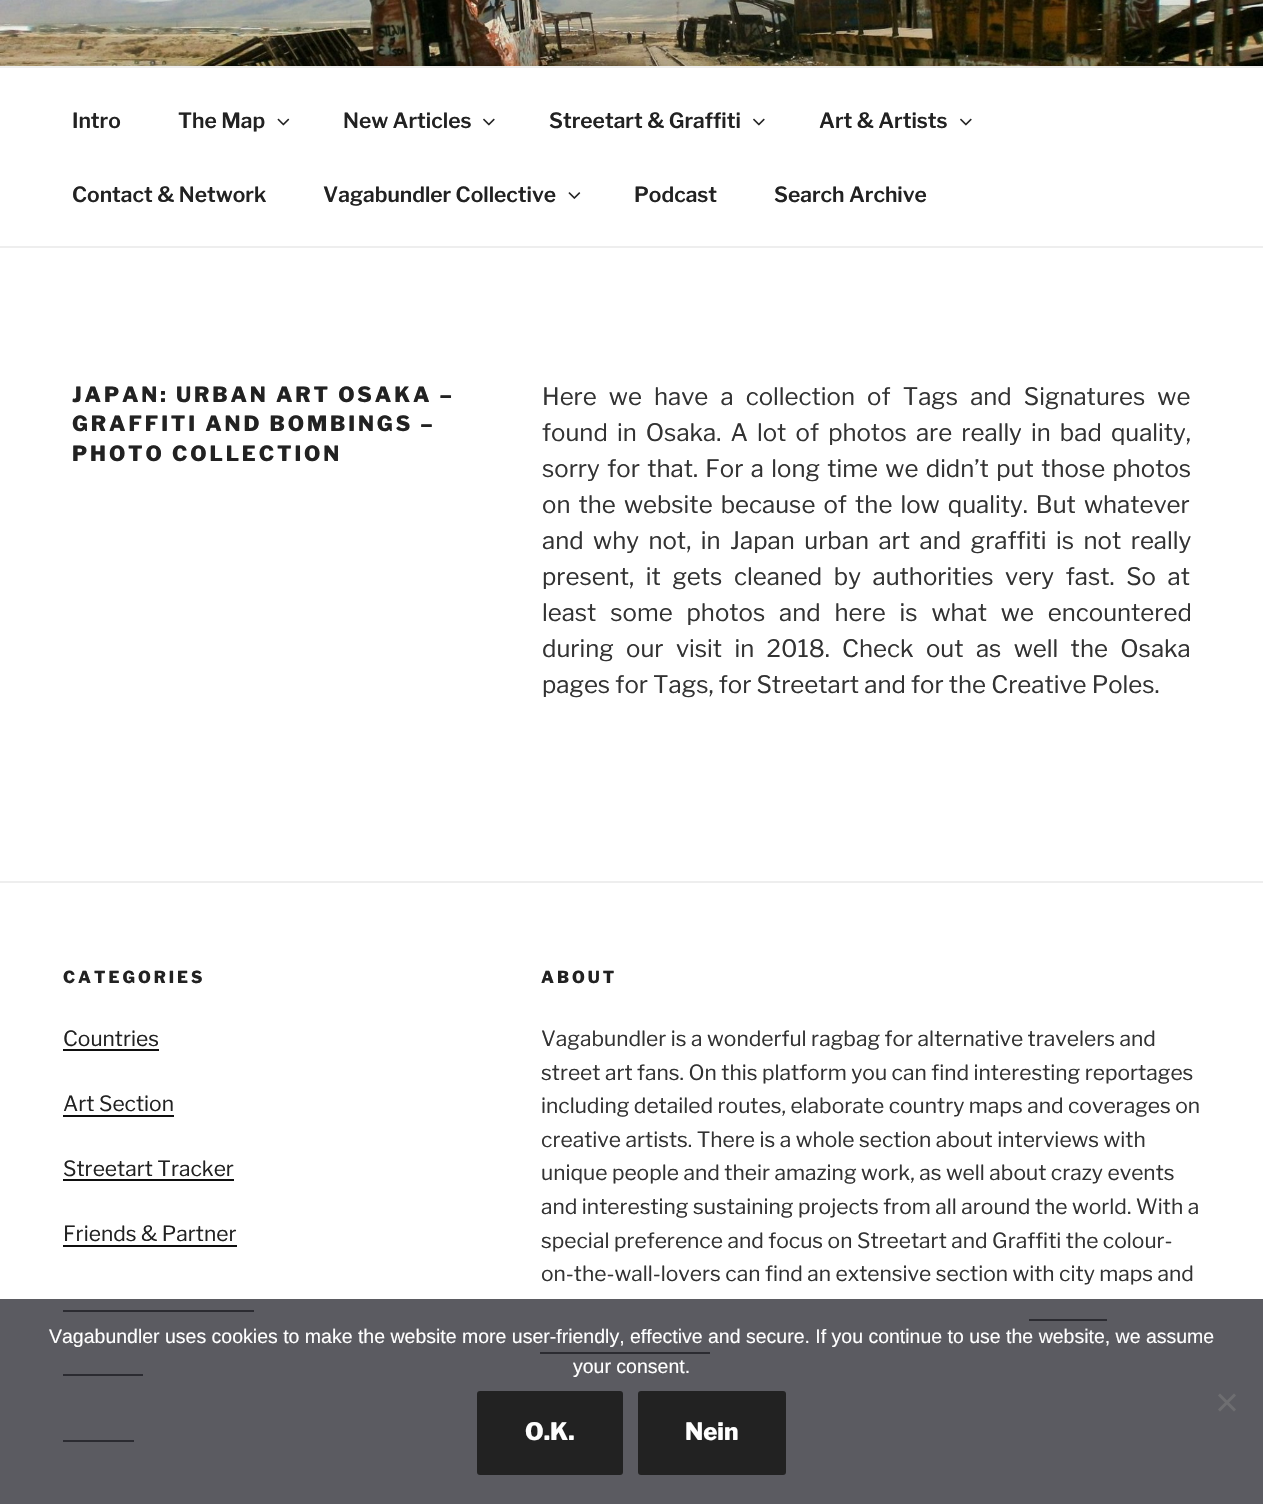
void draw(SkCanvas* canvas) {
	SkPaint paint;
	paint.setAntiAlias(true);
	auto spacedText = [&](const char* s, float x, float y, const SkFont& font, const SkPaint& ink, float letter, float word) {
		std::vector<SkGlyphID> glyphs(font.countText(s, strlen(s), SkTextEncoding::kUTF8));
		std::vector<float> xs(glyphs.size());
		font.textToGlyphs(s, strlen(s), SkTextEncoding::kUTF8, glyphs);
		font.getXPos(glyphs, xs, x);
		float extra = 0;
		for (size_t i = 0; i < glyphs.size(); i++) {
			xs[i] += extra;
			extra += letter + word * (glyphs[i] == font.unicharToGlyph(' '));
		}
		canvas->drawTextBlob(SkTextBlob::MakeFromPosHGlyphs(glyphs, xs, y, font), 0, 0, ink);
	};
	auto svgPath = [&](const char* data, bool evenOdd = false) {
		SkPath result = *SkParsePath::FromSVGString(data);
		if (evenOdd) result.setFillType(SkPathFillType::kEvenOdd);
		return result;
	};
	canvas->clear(0xffffffff);
	canvas->drawImageRect(SkImages::DeferredFromEncodedData(SkData::MakeFromFileName("img1.png")), SkRect::MakeXYWH(0, 0, 1263, 66), SkSamplingOptions());
	paint.setColor(0xffeeeeee);
	canvas->drawRect(SkRect::MakeXYWH(0, 66, 1263, 2), paint);
	canvas->drawRect(SkRect::MakeXYWH(0, 246, 1263, 2), paint);
	SkFont f1(fontMgr->matchFamilyStyle("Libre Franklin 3", SkFontStyle(100, SkFontStyle::kNormal_Width, SkFontStyle::kUpright_Slant)), 21);
	f1.setSubpixel(true);
	paint.setColor(0xff222222);
	canvas->drawString("Intro", 72, 128, f1, paint);
	canvas->drawString("The Map", 178, 128, f1, paint);
	canvas->drawImageRect(SkImages::DeferredFromEncodedData(SkData::MakeFromFileName("img2.png")), SkRect::MakeXYWH(277, 118, 13, 8), SkSamplingOptions());
	canvas->drawString("New Articles", 343, 128, f1, paint);
	canvas->drawImageRect(SkImages::DeferredFromEncodedData(SkData::MakeFromFileName("img3.png")), SkRect::MakeXYWH(483, 118, 12, 8), SkSamplingOptions());
	canvas->drawString("Streetart & Graffiti", 549, 128, f1, paint);
	canvas->drawImageRect(SkImages::DeferredFromEncodedData(SkData::MakeFromFileName("img3.png")), SkRect::MakeXYWH(753, 118, 12, 8), SkSamplingOptions());
	canvas->drawString("Art & Artists", 819, 128, f1, paint);
	canvas->drawImageRect(SkImages::DeferredFromEncodedData(SkData::MakeFromFileName("img3.png")), SkRect::MakeXYWH(960, 118, 12, 8), SkSamplingOptions());
	canvas->drawString("Contact & Network", 72, 202, f1, paint);
	canvas->drawString("Vagabundler Collective", 323, 202, f1, paint);
	canvas->drawImageRect(SkImages::DeferredFromEncodedData(SkData::MakeFromFileName("img4.png")), SkRect::MakeXYWH(568, 192, 13, 7), SkSamplingOptions());
	canvas->drawString("Podcast", 634, 202, f1, paint);
	canvas->drawString("Search Archive", 774, 202, f1, paint);
	SkFont f2(fontMgr->matchFamilyStyle("Libre Franklin", SkFontStyle(100, SkFontStyle::kNormal_Width, SkFontStyle::kUpright_Slant)), 21);
	f2.setSubpixel(true);
	spacedText("JAPAN: URBAN ART OSAKA –", 72, 402, f2, paint, 2.9, 0);
	spacedText("GRAFFITI AND BOMBINGS –", 72, 431, f2, paint, 2.9, 0);
	spacedText("PHOTO COLLECTION", 72, 461, f2, paint, 2.9, 0);
	SkFont f3(fontMgr->matchFamilyStyle("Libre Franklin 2", SkFontStyle(100, SkFontStyle::kNormal_Width, SkFontStyle::kUpright_Slant)), 24);
	f3.setSubpixel(true);
	paint.setColor(0xff333333);
	spacedText("Here we have a collection of Tags and Signatures we", 542, 405, f3, paint, 0, 7);
	spacedText("found in Osaka. A lot of photos are really in bad quality,", 542, 441, f3, paint, 0, 4);
	spacedText("sorry for that. For a long time we didn’t put those photos", 542, 477, f3, paint, 0, 2.25);
	spacedText("on the website because of the low quality. But whatever", 542, 513, f3, paint, 0, 3);
	spacedText("and why not, in Japan urban art and graffiti is not really", 542, 549, f3, paint, 0, 4.4);
	spacedText("present, it gets cleaned by authorities very fast. So at", 542, 585, f3, paint, 0, 6.5);
	spacedText("least some photos and here is what we encountered", 542, 621, f3, paint, 0, 8.75);
	spacedText("during our visit in 2018. Check out as well the Osaka", 542, 657, f3, paint, 0, 7.25);
	canvas->drawString("pages for Tags, for Streetart and for the Creative Poles.", 542, 693, f3, paint);
	paint.setColor(0xffeeeeee);
	canvas->drawRect(SkRect::MakeXYWH(0, 881, 1263, 2), paint);
	SkFont f4(fontMgr->matchFamilyStyle("Libre Franklin", SkFontStyle(100, SkFontStyle::kNormal_Width, SkFontStyle::kUpright_Slant)), 16.5);
	f4.setSubpixel(true);
	paint.setColor(0xff222222);
	spacedText("CATEGORIES", 63, 983, f4, paint, 3, 0);
	SkFont f5(fontMgr->matchFamilyStyle("Libre Franklin 2", SkFontStyle(100, SkFontStyle::kNormal_Width, SkFontStyle::kUpright_Slant)), 21);
	f5.setSubpixel(true);
	canvas->drawString("Countries", 63, 1046, f5, paint);
	paint.setColor(0xff0f0f0f);
	canvas->drawRect(SkRect::MakeXYWH(63, 1049, 96, 2), paint);
	paint.setColor(0xff222222);
	canvas->drawString("Art Section", 63, 1111, f5, paint);
	paint.setColor(0xff0f0f0f);
	canvas->drawRect(SkRect::MakeXYWH(63, 1115, 111, 2), paint);
	paint.setColor(0xff222222);
	canvas->drawString("Streetart Tracker", 63, 1176, f5, paint);
	paint.setColor(0xff0f0f0f);
	canvas->drawRect(SkRect::MakeXYWH(63, 1179, 171, 2), paint);
	paint.setColor(0xff222222);
	canvas->drawString("Friends & Partner", 63, 1241, f5, paint);
	paint.setColor(0xff0f0f0f);
	canvas->drawRect(SkRect::MakeXYWH(63, 1245, 174, 2), paint);
	canvas->drawRect(SkRect::MakeXYWH(63, 1310, 191, 2), paint);
	canvas->drawRect(SkRect::MakeXYWH(63, 1374, 80, 2), paint);
	canvas->drawRect(SkRect::MakeXYWH(63, 1440, 71, 2), paint);
	paint.setColor(0xff222222);
	spacedText("ABOUT", 541, 983, f4, paint, 3, 0);
	paint.setColor(0xff333333);
	canvas->drawString("Vagabundler is a wonderful ragbag for alternative travelers and", 541, 1046, f5, paint);
	canvas->drawString("street art fans. On this platform you can find interesting reportages", 541, 1080, f5, paint);
	canvas->drawString("including detailed routes, elaborate country maps and coverages on", 541, 1113, f5, paint);
	canvas->drawString("creative artists. There is a whole section about interviews with", 541, 1147, f5, paint);
	canvas->drawString("unique people and their amazing work, as well about crazy events", 541, 1180, f5, paint);
	canvas->drawString("and interesting sustaining projects from all around the world. With a", 541, 1214, f5, paint);
	canvas->drawString("special preference and focus on Streetart and Graffiti the colour-", 541, 1248, f5, paint);
	canvas->drawString("on-the-wall-lovers can find an extensive section with city maps and", 541, 1281, f5, paint);
	paint.setColor(0xff0f0f0f);
	canvas->drawRect(SkRect::MakeXYWH(1029, 1319, 78, 2), paint);
	canvas->drawRect(SkRect::MakeXYWH(540, 1352, 170, 2), paint);
	paint.setColor(0xcc32323a);
	canvas->drawRect(SkRect::MakeXYWH(0, 1299, 1263, 205), paint);
	SkFont f6(fontMgr->matchFamilyStyle("Liberation Sans", SkFontStyle::Normal()), 19.5);
	f6.setSubpixel(true);
	paint.setColor(0xffffffff);
	canvas->drawString("Vagabundler uses cookies to make the website more user-friendly, effective and secure. If you continue to use the website, we assume", 49, 1343, f6, paint);
	canvas->drawString("your consent.", 573, 1373, f6, paint);
	paint.setColor(0xff6e6e71);
	canvas->drawPath(svgPath("M1234 1393.5L1236 1395.5L1220 1411.5L1218 1409.5Z"), paint);
	canvas->drawPath(svgPath("M1218 1395.5L1220 1393.5L1236 1409.5L1234 1411.5Z"), paint);
	paint.setColor(0xff222222);
	canvas->drawRoundRect(SkRect::MakeXYWH(477, 1391, 146, 84), 3, 3, paint);
	SkFont f7(fontMgr->matchFamilyStyle("Libre Franklin", SkFontStyle(100, SkFontStyle::kNormal_Width, SkFontStyle::kUpright_Slant)), 24);
	f7.setSubpixel(true);
	paint.setColor(0xffffffff);
	canvas->drawString("O.K.", 525, 1440, f7, paint);
	paint.setColor(0xff222222);
	canvas->drawRoundRect(SkRect::MakeXYWH(638, 1391, 148, 84), 3, 3, paint);
	paint.setColor(0xffffffff);
	canvas->drawString("Nein", 685, 1440, f7, paint);
}
